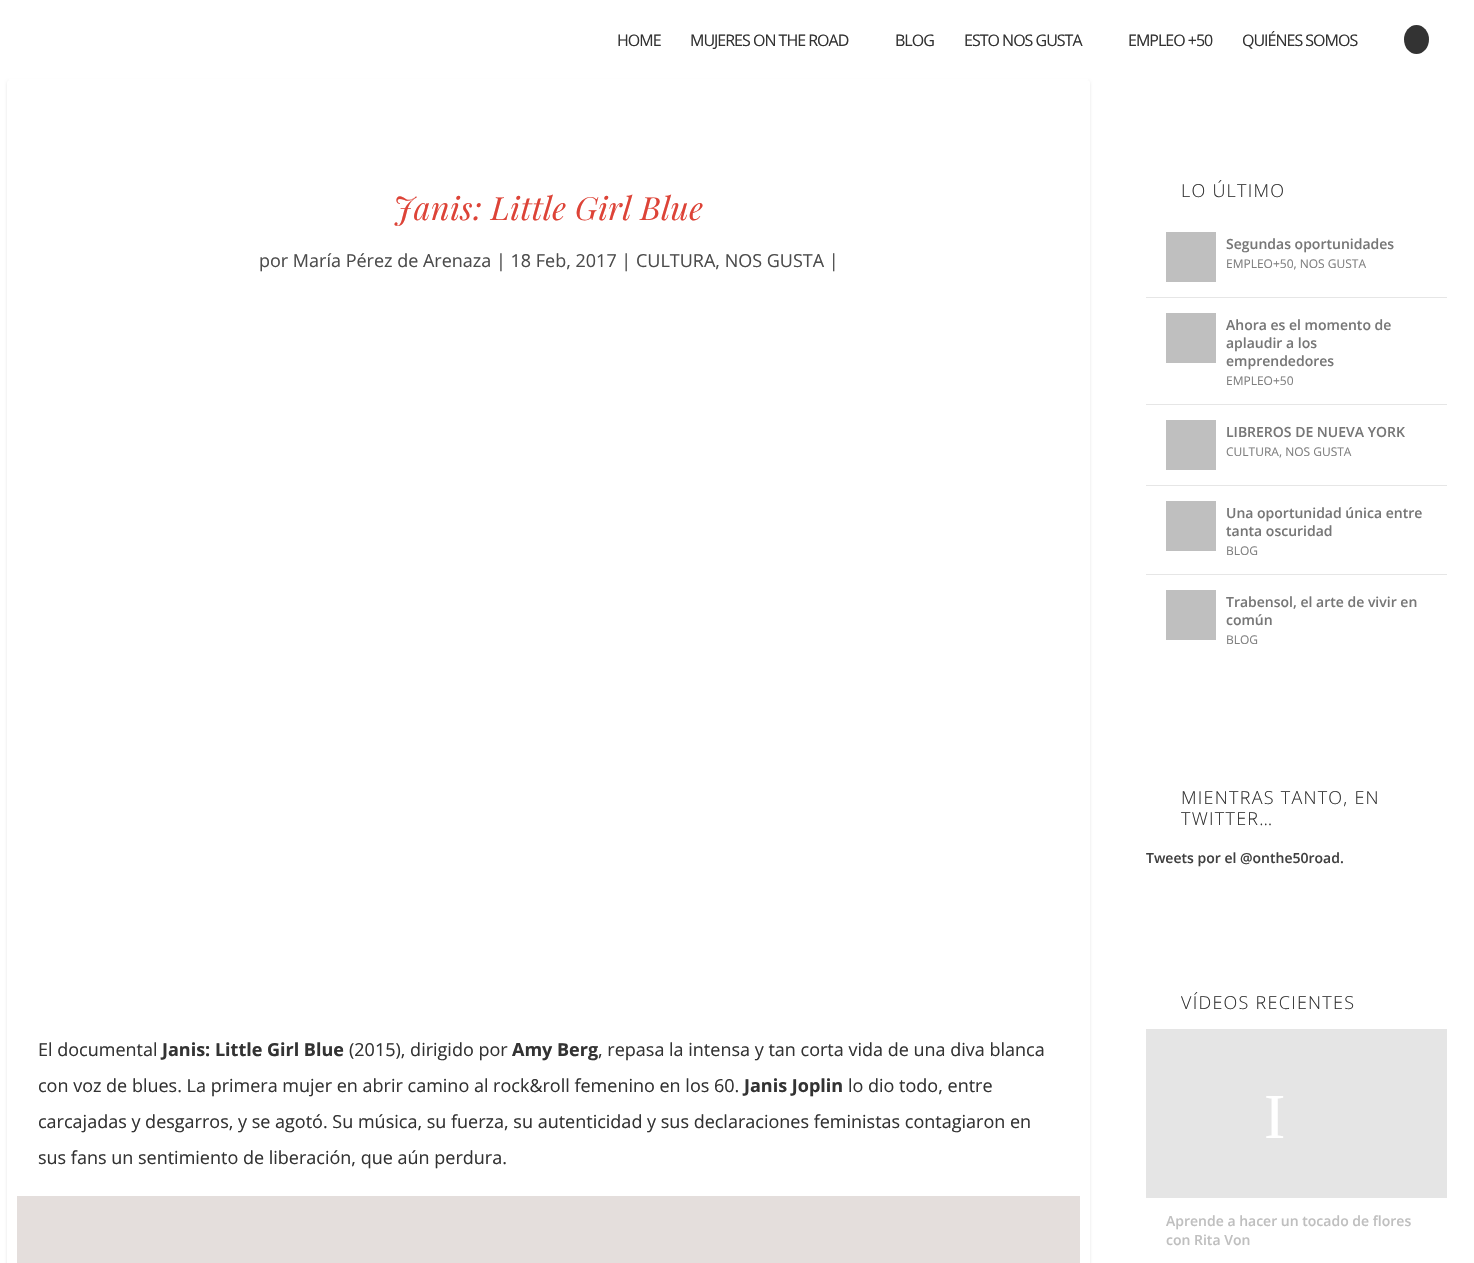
void draw(SkCanvas* canvas) {
	SkPaint paint;
	paint.setAntiAlias(true);
	auto spacedText = [&](const char* s, float x, float y, const SkFont& font, const SkPaint& ink, float letter, float word) {
		std::vector<SkGlyphID> glyphs(font.countText(s, strlen(s), SkTextEncoding::kUTF8));
		std::vector<float> xs(glyphs.size());
		font.textToGlyphs(s, strlen(s), SkTextEncoding::kUTF8, glyphs);
		font.getXPos(glyphs, xs, x);
		float extra = 0;
		for (size_t i = 0; i < glyphs.size(); i++) {
			xs[i] += extra;
			extra += letter + word * (glyphs[i] == font.unicharToGlyph(' '));
		}
		canvas->drawTextBlob(SkTextBlob::MakeFromPosHGlyphs(glyphs, xs, y, font), 0, 0, ink);
	};
	canvas->clear(0xffffffff);
	paint.setColor(0x1a000000);
	paint.setMaskFilter(SkMaskFilter::MakeBlur(kNormal_SkBlurStyle, 1.5));
	canvas->drawRoundRect(SkRect::MakeXYWH(7, 81, 1083, 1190), 3, 3, paint);
	paint.setMaskFilter(nullptr);
	paint.setColor(0xffffffff);
	canvas->drawRect(SkRect::MakeXYWH(9, 79, 1079, 1), paint);
	SkFont f1(fontMgr->matchFamilyStyle("Open Sans", SkFontStyle::Normal()), 16);
	f1.setSubpixel(true);
	paint.setColor(0xff333333);
	spacedText("HOME", 617, 46, f1, paint, -1, 0);
	spacedText("MUJERES ON THE ROAD", 690, 46, f1, paint, -1, 0);
	spacedText("BLOG", 895, 46, f1, paint, -1, 0);
	spacedText("ESTO NOS GUSTA", 964, 46, f1, paint, -1, 0);
	spacedText("EMPLEO +50", 1128, 46, f1, paint, -1, 0);
	spacedText("QUIÉNES SOMOS", 1242, 46, f1, paint, -1, 0);
	canvas->drawOval(SkRect::MakeXYWH(1404, 25, 25, 29), paint);
	paint.setColor(0xffffffff);
	canvas->drawRoundRect(SkRect::MakeXYWH(7, 80, 1083, 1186), 3, 3, paint);
	SkFont f2(fontMgr->matchFamilyStyle("Playfair Display", SkFontStyle::Italic()), 32);
	f2.setSubpixel(true);
	paint.setColor(0xffdd4337);
	spacedText("Janis: Little Girl Blue", 393, 220, f2, paint, 0.5, 0);
	SkFont f3(fontMgr->matchFamilyStyle("Open Sans", SkFontStyle::Normal()), 18);
	f3.setSubpixel(true);
	paint.setColor(0xff4c4c4c);
	canvas->drawString("por María Pérez de Arenaza | 18 Feb, 2017 | CULTURA, NOS GUSTA |", 259, 267, f3, paint);
	paint.setColor(0xff333333);
	canvas->drawString("El documental", 38, 1056, f3, paint);
	SkFont f4(fontMgr->matchFamilyStyle("Open Sans", SkFontStyle::Bold()), 18);
	f4.setSubpixel(true);
	canvas->drawString("Janis: Little Girl Blue", 162, 1056, f4, paint);
	canvas->drawString("(2015), dirigido por", 349, 1056, f3, paint);
	canvas->drawString("Amy Berg", 512, 1056, f4, paint);
	canvas->drawString(", repasa la intensa y tan corta vida de una diva blanca", 598, 1056, f3, paint);
	canvas->drawString("con voz de blues. La primera mujer en abrir camino al rock&roll femenino en los 60.", 38, 1092, f3, paint);
	canvas->drawString("Janis Joplin", 744, 1092, f4, paint);
	canvas->drawString("lo dio todo, entre", 848, 1092, f3, paint);
	canvas->drawString("carcajadas y desgarros, y se agotó. Su música, su fuerza, su autenticidad y sus declaraciones feministas contagiaron en", 38, 1128, f3, paint);
	canvas->drawString("sus fans un sentimiento de liberación, que aún perdura.", 38, 1164, f3, paint);
	paint.setColor(0xffe4dedc);
	canvas->drawRect(SkRect::MakeXYWH(17, 1196, 1063, 67), paint);
	SkFont f5(fontMgr->matchFamilyStyle("Open Sans", SkFontStyle(300, SkFontStyle::kNormal_Width, SkFontStyle::kUpright_Slant)), 18);
	f5.setSubpixel(true);
	paint.setColor(0xff333333);
	spacedText("LO ÚLTIMO", 1181, 197, f5, paint, 1.25, 0);
	paint.setColor(0xffe6e6e6);
	canvas->drawRect(SkRect::MakeXYWH(1146, 297, 301, 1), paint);
	paint.setColor(0xffbfbfbf);
	canvas->drawRect(SkRect::MakeXYWH(1166, 232, 50, 50), paint);
	SkFont f6(fontMgr->matchFamilyStyle("Open Sans", SkFontStyle(600, SkFontStyle::kNormal_Width, SkFontStyle::kUpright_Slant)), 14);
	f6.setSubpixel(true);
	paint.setColor(0xff777777);
	canvas->drawString("Segundas oportunidades", 1226, 249, f6, paint);
	SkFont f7(fontMgr->matchFamilyStyle("Open Sans", SkFontStyle::Normal()), 12);
	f7.setSubpixel(true);
	paint.setColor(0xff808080);
	canvas->drawString("EMPLEO+50, NOS GUSTA", 1226, 268, f7, paint);
	paint.setColor(0xffe6e6e6);
	canvas->drawRect(SkRect::MakeXYWH(1146, 404, 301, 1), paint);
	paint.setColor(0xffbfbfbf);
	canvas->drawRect(SkRect::MakeXYWH(1166, 313, 50, 50), paint);
	paint.setColor(0xff777777);
	canvas->drawString("Ahora es el momento de", 1226, 330, f6, paint);
	canvas->drawString("aplaudir a los", 1226, 348, f6, paint);
	canvas->drawString("emprendedores", 1226, 366, f6, paint);
	paint.setColor(0xff808080);
	canvas->drawString("EMPLEO+50", 1226, 385, f7, paint);
	paint.setColor(0xffe6e6e6);
	canvas->drawRect(SkRect::MakeXYWH(1146, 485, 301, 1), paint);
	paint.setColor(0xffbfbfbf);
	canvas->drawRect(SkRect::MakeXYWH(1166, 420, 50, 50), paint);
	paint.setColor(0xff777777);
	canvas->drawString("LIBREROS DE NUEVA YORK", 1226, 437, f6, paint);
	paint.setColor(0xff808080);
	canvas->drawString("CULTURA, NOS GUSTA", 1226, 456, f7, paint);
	paint.setColor(0xffe6e6e6);
	canvas->drawRect(SkRect::MakeXYWH(1146, 574, 301, 1), paint);
	paint.setColor(0xffbfbfbf);
	canvas->drawRect(SkRect::MakeXYWH(1166, 501, 50, 50), paint);
	paint.setColor(0xff777777);
	canvas->drawString("Una oportunidad única entre", 1226, 518, f6, paint);
	canvas->drawString("tanta oscuridad", 1226, 536, f6, paint);
	paint.setColor(0xff808080);
	canvas->drawString("BLOG", 1226, 555, f7, paint);
	paint.setColor(0xffbfbfbf);
	canvas->drawRect(SkRect::MakeXYWH(1166, 590, 50, 50), paint);
	paint.setColor(0xff777777);
	canvas->drawString("Trabensol, el arte de vivir en", 1226, 607, f6, paint);
	canvas->drawString("común", 1226, 625, f6, paint);
	paint.setColor(0xff808080);
	canvas->drawString("BLOG", 1226, 644, f7, paint);
	paint.setColor(0xff333333);
	spacedText("MIENTRAS TANTO, EN", 1181, 804, f5, paint, 1.25, 0);
	spacedText("TWITTER…", 1181, 825, f5, paint, 1.25, 0);
	paint.setColor(0xff404040);
	canvas->drawString("Tweets por el @onthe50road.", 1146, 863, f6, paint);
	paint.setColor(0xff333333);
	spacedText("VÍDEOS RECIENTES", 1181, 1009, f5, paint, 1.25, 0);
	paint.setColor(0xffe5e5e5);
	canvas->drawRect(SkRect::MakeXYWH(1146, 1029, 301, 169), paint);
	SkFont f8(fontMgr->matchFamilyStyle("Liberation Serif", SkFontStyle::Normal()), 64);
	f8.setSubpixel(true);
	paint.setColor(0xffffffff);
	canvas->drawString("I", 1264, 1138, f8, paint);
	paint.setColor(0xffbfbfbf);
	canvas->drawString("Aprende a hacer un tocado de flores", 1166, 1226, f6, paint);
	canvas->drawString("con Rita Von", 1166, 1245, f6, paint);
}
